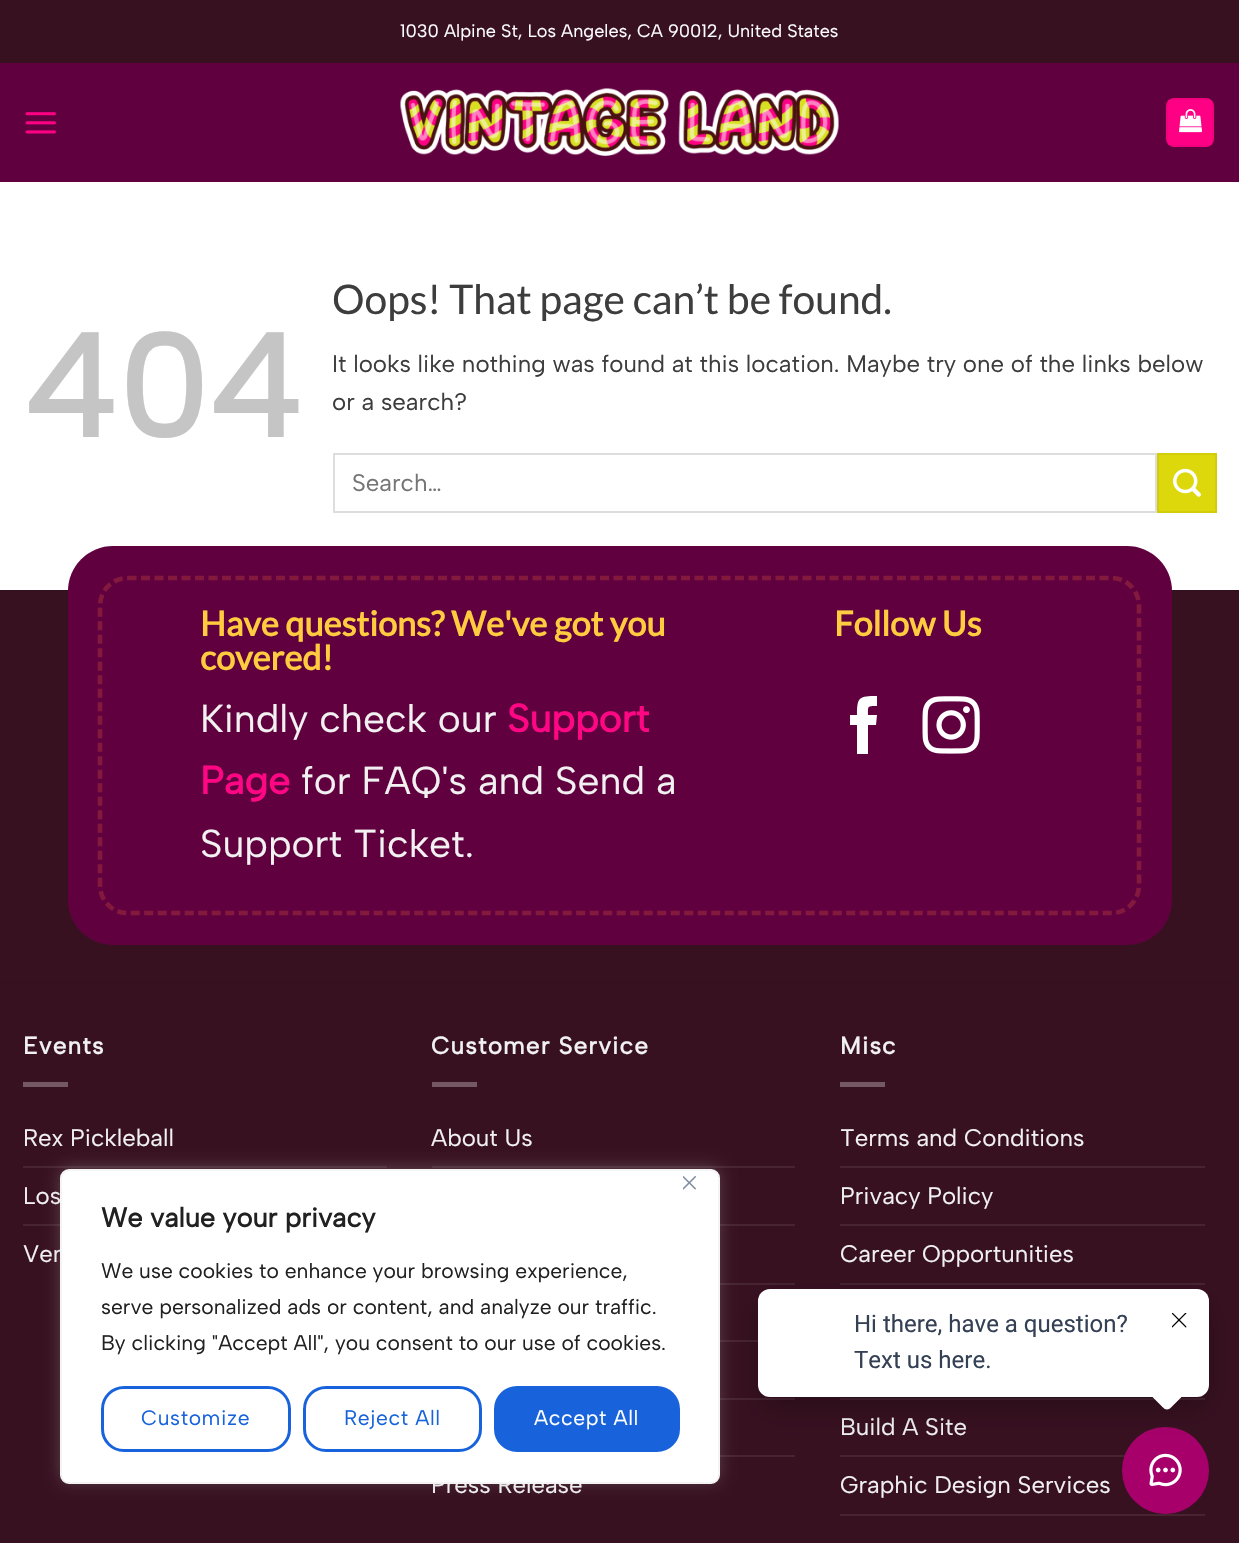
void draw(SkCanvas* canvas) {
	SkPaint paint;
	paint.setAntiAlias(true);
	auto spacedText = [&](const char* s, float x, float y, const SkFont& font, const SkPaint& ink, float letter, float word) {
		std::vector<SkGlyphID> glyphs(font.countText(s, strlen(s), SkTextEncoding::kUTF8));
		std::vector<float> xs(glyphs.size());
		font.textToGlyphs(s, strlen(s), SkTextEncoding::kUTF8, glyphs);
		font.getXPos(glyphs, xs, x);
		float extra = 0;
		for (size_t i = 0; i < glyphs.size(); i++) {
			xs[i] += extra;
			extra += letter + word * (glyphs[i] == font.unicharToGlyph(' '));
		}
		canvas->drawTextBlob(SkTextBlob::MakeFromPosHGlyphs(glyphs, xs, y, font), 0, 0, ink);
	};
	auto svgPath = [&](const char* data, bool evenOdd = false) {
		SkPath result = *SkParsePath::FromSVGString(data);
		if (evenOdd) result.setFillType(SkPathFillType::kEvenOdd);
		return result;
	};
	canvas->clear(0xffffffff);
	paint.setColor(0xff381121);
	canvas->drawRect(SkRect::MakeXYWH(0, 0, 1239, 63), paint);
	SkFont f1(fontMgr->matchFamilyStyle("Albert Sans", SkFontStyle::Normal()), 18);
	f1.setSubpixel(true);
	paint.setColor(0xffffffff);
	canvas->drawString("1030 Alpine St, Los Angeles, CA 90012, United States", 400, 37, f1, paint);
	paint.setColor(0xff61003e);
	canvas->drawRect(SkRect::MakeXYWH(0, 63, 1239, 119), paint);
	canvas->drawImageRect(SkImages::DeferredFromEncodedData(SkData::MakeFromFileName("img1.png")), SkRect::MakeXYWH(25, 112, 31, 22), SkSamplingOptions());
	canvas->drawImageRect(SkImages::DeferredFromEncodedData(SkData::MakeFromFileName("img2.png")), SkRect::MakeXYWH(400, 88, 439, 68), SkSamplingOptions());
	paint.setColor(0xffff0084);
	canvas->drawRoundRect(SkRect::MakeXYWH(1166, 98, 48, 49), 8, 8, paint);
	paint.setStroke(true);
	paint.setStrokeWidth(2);
	paint.setColor(0x0d000000);
	canvas->drawRect(SkRect::MakeXYWH(1167, 99, 46, 47), paint);
	canvas->drawImageRect(SkImages::DeferredFromEncodedData(SkData::MakeFromFileName("img3.png")), SkRect::MakeXYWH(1179, 109, 23, 24), SkSamplingOptions());
	SkFont f2(fontMgr->matchFamilyStyle("Albert Sans", SkFontStyle::Bold()), 144);
	f2.setSubpixel(true);
	paint.setStroke(false);
	paint.setColor(0xffc5c5c5);
	canvas->drawString("404", 23, 437, f2, paint);
	SkFont f3(fontMgr->matchFamilyStyle("Lato", SkFontStyle::Normal()), 40.75);
	f3.setSubpixel(true);
	paint.setColor(0xff3d3d3d);
	canvas->drawString("Oops! That page can’t be found.", 332, 314, f3, paint);
	SkFont f4(fontMgr->matchFamilyStyle("Albert Sans", SkFontStyle::Normal()), 24);
	f4.setSubpixel(true);
	canvas->drawString("It looks like nothing was found at this location. Maybe try one of the links below", 332, 372, f4, paint);
	canvas->drawString("or a search?", 332, 410, f4, paint);
	paint.setStroke(true);
	paint.setColor(0xffdddddd);
	canvas->drawRect(SkRect::MakeXYWH(334, 454, 822, 58), paint);
	paint.setStroke(false);
	paint.setColor(0xff757575);
	canvas->drawString("Search…", 352, 491, f4, paint);
	paint.setColor(0xffddd80b);
	canvas->drawRect(SkRect::MakeXYWH(1158, 454, 58, 58), paint);
	paint.setStroke(true);
	paint.setColor(0xffd2cd0a);
	canvas->drawRect(SkRect::MakeXYWH(1158, 454, 58, 58), paint);
	canvas->drawImageRect(SkImages::DeferredFromEncodedData(SkData::MakeFromFileName("img4.png")), SkRect::MakeXYWH(1173, 468, 28, 29), SkSamplingOptions());
	paint.setStroke(false);
	paint.setColor(0xff381121);
	canvas->drawRect(SkRect::MakeXYWH(0, 592, 1239, 389), paint);
	paint.setColor(0xff35101f);
	canvas->drawRect(SkRect::MakeXYWH(0, 590, 1239, 2), paint);
	paint.setColor(0xff61003e);
	canvas->drawRoundRect(SkRect::MakeXYWH(68, 546, 1104, 399), 45, 45, paint);
	paint.setStroke(true);
	paint.setStrokeWidth(4.5);
	paint.setColor(0xff831a3e);
	paint.setPathEffect(SkDashPathEffect::Make({{9, 4.5f}}, 0));
	canvas->drawPath(svgPath("M127.5 578H1111.5C1127 578 1139 590.5 1139 606V885C1139 900.5 1127 913 1111.5 913H127.5C112 913 100 900.5 100 885V606C100 590.5 112 578 127.5 578Z"), paint);
	paint.setPathEffect(nullptr);
	SkFont f5(fontMgr->matchFamilyStyle("Lato", SkFontStyle::Bold()), 34.25);
	f5.setSubpixel(true);
	paint.setStroke(false);
	paint.setColor(0xffffcc3f);
	canvas->drawString("Have questions? We've got you", 200, 636, f5, paint);
	canvas->drawString("covered!", 200, 670, f5, paint);
	SkFont f6(fontMgr->matchFamilyStyle("Albert Sans", SkFontStyle::Normal()), 39);
	f6.setSubpixel(true);
	paint.setColor(0xfff1f1f1);
	canvas->drawString("Kindly check our", 200, 732, f6, paint);
	SkFont f7(fontMgr->matchFamilyStyle("Albert Sans", SkFontStyle::Bold()), 39);
	f7.setSubpixel(true);
	paint.setColor(0xffff0784);
	canvas->drawString("Support", 507, 732, f7, paint);
	canvas->drawString("Page", 200, 794, f7, paint);
	paint.setColor(0xfff1f1f1);
	canvas->drawString("for FAQ's and Send a", 301, 794, f6, paint);
	canvas->drawString("Support Ticket.", 200, 857, f6, paint);
	paint.setColor(0xffffcc3f);
	canvas->drawString("Follow Us", 834, 636, f5, paint);
	paint.setColor(0xffffffff);
	canvas->drawPath(svgPath("M868 754H857V725H850V715H857C857 697 859 696 877 696V706C867 706 868 706 868 715H877L876 725H868Z"), paint);
	canvas->drawImageRect(SkImages::DeferredFromEncodedData(SkData::MakeFromFileName("img5.png")), SkRect::MakeXYWH(922, 696, 58, 58), SkSamplingOptions());
	paint.setColor(0xff381121);
	canvas->drawRect(SkRect::MakeXYWH(0, 983, 1239, 560), paint);
	paint.setColor(0xff35101f);
	canvas->drawRect(SkRect::MakeXYWH(0, 981, 1239, 2), paint);
	SkFont f8(fontMgr->matchFamilyStyle("Albert Sans", SkFontStyle::Bold()), 24);
	f8.setSubpixel(true);
	paint.setColor(0xfff1f1f1);
	spacedText("Events", 23, 1054, f8, paint, 1.25, 0);
	paint.setColor(0xff745864);
	canvas->drawRect(SkRect::MakeXYWH(23, 1082, 45, 5), paint);
	paint.setColor(0xfff1f1f1);
	canvas->drawString("Rex Pickleball", 23, 1146, f4, paint);
	paint.setColor(0xff482433);
	canvas->drawRect(SkRect::MakeXYWH(23, 1166, 364, 2), paint);
	paint.setColor(0xfff1f1f1);
	canvas->drawString("Los", 23, 1204, f4, paint);
	paint.setColor(0xff482433);
	canvas->drawRect(SkRect::MakeXYWH(23, 1224, 37, 2), paint);
	paint.setColor(0xfff1f1f1);
	canvas->drawString("Ven", 23, 1262, f4, paint);
	spacedText("Customer Service", 431, 1054, f8, paint, 1.25, 0);
	paint.setColor(0xff745864);
	canvas->drawRect(SkRect::MakeXYWH(432, 1082, 45, 5), paint);
	paint.setColor(0xfff1f1f1);
	canvas->drawString("About Us", 431, 1146, f4, paint);
	paint.setColor(0xff482433);
	canvas->drawRect(SkRect::MakeXYWH(432, 1166, 363, 2), paint);
	canvas->drawRect(SkRect::MakeXYWH(720, 1224, 75, 2), paint);
	canvas->drawRect(SkRect::MakeXYWH(720, 1283, 75, 2), paint);
	canvas->drawRect(SkRect::MakeXYWH(720, 1340, 38, 2), paint);
	canvas->drawRect(SkRect::MakeXYWH(720, 1398, 75, 2), paint);
	canvas->drawRect(SkRect::MakeXYWH(720, 1455, 75, 2), paint);
	paint.setColor(0xfff1f1f1);
	canvas->drawString("Press Release", 431, 1493, f4, paint);
	spacedText("Misc", 840, 1054, f8, paint, 1.25, 0);
	paint.setColor(0xff745864);
	canvas->drawRect(SkRect::MakeXYWH(840, 1082, 45, 5), paint);
	paint.setColor(0xfff1f1f1);
	canvas->drawString("Terms and Conditions", 840, 1146, f4, paint);
	paint.setColor(0xff482433);
	canvas->drawRect(SkRect::MakeXYWH(840, 1166, 365, 2), paint);
	paint.setColor(0xfff1f1f1);
	canvas->drawString("Privacy Policy", 840, 1204, f4, paint);
	paint.setColor(0xff482433);
	canvas->drawRect(SkRect::MakeXYWH(840, 1224, 365, 2), paint);
	paint.setColor(0xfff1f1f1);
	canvas->drawString("Career Opportunities", 840, 1262, f4, paint);
	paint.setColor(0xff482433);
	canvas->drawRect(SkRect::MakeXYWH(840, 1283, 365, 2), paint);
	canvas->drawRect(SkRect::MakeXYWH(840, 1398, 365, 2), paint);
	paint.setColor(0xfff1f1f1);
	canvas->drawString("Build A Site", 840, 1435, f4, paint);
	paint.setColor(0xff482433);
	canvas->drawRect(SkRect::MakeXYWH(840, 1455, 285, 2), paint);
	paint.setColor(0xfff1f1f1);
	canvas->drawString("Graphic Design Services", 840, 1493, f4, paint);
	paint.setColor(0xff482433);
	canvas->drawRect(SkRect::MakeXYWH(840, 1514, 365, 2), paint);
	paint.setColor(0x4dacabab);
	paint.setMaskFilter(SkMaskFilter::MakeBlur(kNormal_SkBlurStyle, 7.5));
	canvas->drawRoundRect(SkRect::MakeXYWH(60, 1167, 660, 315), 9, 9, paint);
	paint.setMaskFilter(nullptr);
	paint.setColor(0xffffffff);
	canvas->drawRoundRect(SkRect::MakeXYWH(61, 1170, 658, 313), 8, 8, paint);
	paint.setStroke(true);
	paint.setStrokeWidth(2);
	paint.setColor(0xfff4f4f4);
	canvas->drawRoundRect(SkRect::MakeXYWH(61, 1170, 658, 313), 8, 8, paint);
	canvas->drawImageRect(SkImages::DeferredFromEncodedData(SkData::MakeFromFileName("img6.png")), SkRect::MakeXYWH(683, 1176, 13, 14), SkSamplingOptions());
	SkFont f9(fontMgr->matchFamilyStyle("Albert Sans", SkFontStyle::Bold()), 27);
	f9.setSubpixel(true);
	paint.setStroke(false);
	paint.setColor(0xff212121);
	canvas->drawString("We value your privacy", 101, 1227, f9, paint);
	SkFont f10(fontMgr->matchFamilyStyle("Albert Sans", SkFontStyle::Normal()), 21);
	f10.setSubpixel(true);
	canvas->drawString("We use cookies to enhance your browsing experience,", 101, 1278, f10, paint);
	canvas->drawString("serve personalized ads or content, and analyze our traffic.", 101, 1314, f10, paint);
	canvas->drawString("By clicking \"Accept All\", you consent to our use of cookies.", 101, 1350, f10, paint);
	paint.setStroke(true);
	paint.setStrokeWidth(3);
	paint.setColor(0xff1863dc);
	canvas->drawRoundRect(SkRect::MakeXYWH(102.5, 1387.5, 187, 63), 21.5, 21.5, paint);
	paint.setStroke(false);
	spacedText("Customize", 141, 1425, f10, paint, 0.6, 0);
	paint.setStroke(true);
	canvas->drawRoundRect(SkRect::MakeXYWH(304.5, 1387.5, 176, 63), 21.5, 21.5, paint);
	paint.setStroke(false);
	spacedText("Reject All", 344, 1425, f10, paint, 0.6, 0);
	canvas->drawRoundRect(SkRect::MakeXYWH(495.5, 1387.5, 183, 63), 21.5, 21.5, paint);
	paint.setStroke(true);
	canvas->drawRoundRect(SkRect::MakeXYWH(495.5, 1387.5, 183, 63), 21.5, 21.5, paint);
	paint.setStroke(false);
	paint.setColor(0xffffffff);
	spacedText("Accept All", 534, 1425, f10, paint, 0.6, 0);
	paint.setColor(0xffa7006b);
	canvas->drawCircle(1165.5, 1470.5, 43.5, paint);
	canvas->drawImageRect(SkImages::DeferredFromEncodedData(SkData::MakeFromFileName("img8.png")), SkRect::MakeXYWH(1149, 1453, 33, 34), SkSamplingOptions());
	paint.setColor(0x3d000000);
	paint.setMaskFilter(SkMaskFilter::MakeBlur(kNormal_SkBlurStyle, 15));
	canvas->drawRoundRect(SkRect::MakeXYWH(758, 1301, 451, 108), 12, 12, paint);
	paint.setMaskFilter(nullptr);
	paint.setColor(0xffffffff);
	canvas->drawRoundRect(SkRect::MakeXYWH(758, 1289, 451, 108), 12, 12, paint);
	SkFont f11(fontMgr->matchFamilyStyle("Roboto", SkFontStyle::Normal()), 24);
	f11.setSubpixel(true);
	paint.setColor(0xff344054);
	canvas->drawString("Hi there, have a question?", 854, 1332, f11, paint);
	canvas->drawString("Text us here.", 854, 1368, f11, paint);
	paint.setColor(0xffffffff);
	canvas->drawPath(svgPath("M1171 1373.5L1184 1386.5C1186.5 1388.5 1186.5 1392.5 1184 1394.5L1171 1407.5C1169 1410 1165 1410 1163 1407.5L1150 1394.5C1147.5 1392.5 1147.5 1388.5 1150 1386.5L1163 1373.5C1165 1371 1169 1371 1171 1373.5Z"), paint);
	canvas->drawImageRect(SkImages::DeferredFromEncodedData(SkData::MakeFromFileName("img7.png")), SkRect::MakeXYWH(1172, 1313, 15, 15), SkSamplingOptions());
}
